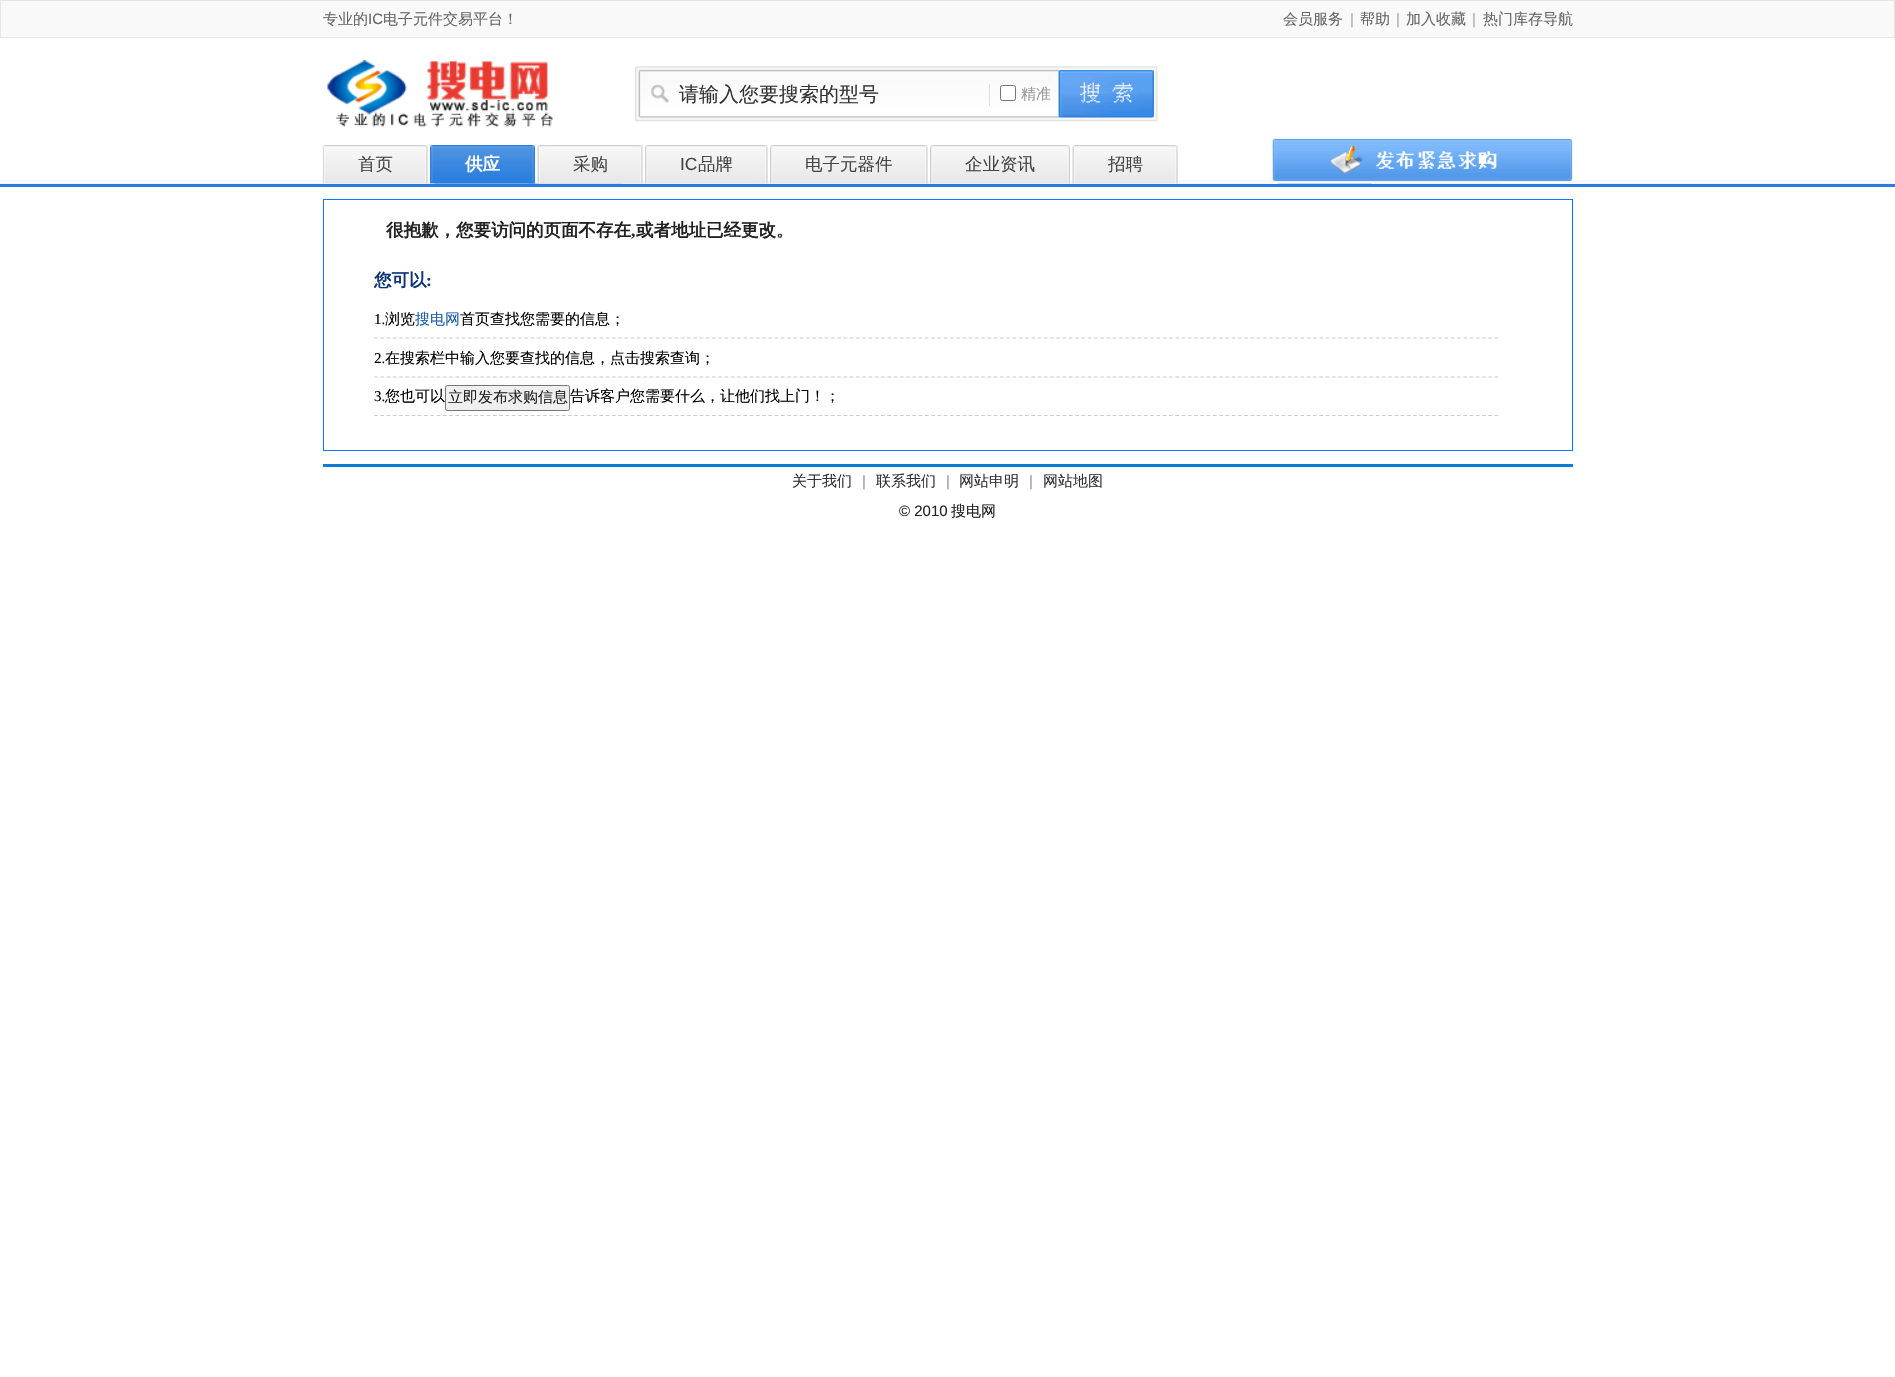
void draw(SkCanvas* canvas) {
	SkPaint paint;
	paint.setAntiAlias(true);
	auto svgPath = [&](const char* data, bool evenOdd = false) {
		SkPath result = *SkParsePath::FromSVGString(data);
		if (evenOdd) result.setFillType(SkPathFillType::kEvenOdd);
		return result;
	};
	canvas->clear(0xffffffff);
	paint.setColor(0xfff9f9f9);
	canvas->drawRect(SkRect::MakeXYWH(0.5, 0.5, 1894, 37), paint);
	paint.setStroke(true);
	paint.setStrokeWidth(1);
	paint.setColor(0xffe6e6e6);
	canvas->drawRect(SkRect::MakeXYWH(0.5, 0.5, 1894, 37), paint);
	SkFont f1(fontMgr->matchFamilyStyle("WenQuanYi Zen Hei", SkFontStyle(500, SkFontStyle::kNormal_Width, SkFontStyle::kUpright_Slant)), 15);
	f1.setSubpixel(true);
	paint.setStroke(false);
	paint.setColor(0xff666666);
	canvas->drawString("专业的", 323, 24, f1, paint);
	SkFont f2(fontMgr->matchFamilyStyle("Liberation Sans", SkFontStyle::Normal()), 15);
	f2.setSubpixel(true);
	canvas->drawString("IC", 368, 24, f2, paint);
	canvas->drawString("电子元件交易平台！", 383, 24, f1, paint);
	canvas->drawString("会员服务", 1283, 24, f1, paint);
	paint.setColor(0xffaaaaaa);
	canvas->drawString("|", 1350, 24, f2, paint);
	paint.setColor(0xff666666);
	canvas->drawString("帮助", 1360, 24, f1, paint);
	paint.setColor(0xffaaaaaa);
	canvas->drawString("|", 1396, 24, f2, paint);
	paint.setColor(0xff666666);
	canvas->drawString("加入收藏", 1406, 24, f1, paint);
	paint.setColor(0xffaaaaaa);
	canvas->drawString("|", 1472, 24, f2, paint);
	paint.setColor(0xff666666);
	canvas->drawString("热门库存导航", 1483, 24, f1, paint);
	canvas->drawImageRect(SkImages::DeferredFromEncodedData(SkData::MakeFromFileName("img1.png")), SkRect::MakeXYWH(0, 180, 1895, 4), SkSamplingOptions());
	paint.setColor(0xff287ddf);
	canvas->drawRect(SkRect::MakeXYWH(0, 184, 1895, 3), paint);
	canvas->drawImageRect(SkImages::DeferredFromEncodedData(SkData::MakeFromFileName("img2.png")), SkRect::MakeXYWH(327, 60, 226, 67), SkSamplingOptions());
	canvas->drawImageRect(SkImages::DeferredFromEncodedData(SkData::MakeFromFileName("img3.png")), SkRect::MakeXYWH(635, 66, 523, 56), SkSamplingOptions());
	SkFont f3(fontMgr->matchFamilyStyle("WenQuanYi Zen Hei", SkFontStyle(500, SkFontStyle::kNormal_Width, SkFontStyle::kUpright_Slant)), 20);
	f3.setSubpixel(true);
	paint.setColor(0xff333333);
	canvas->drawString("请输入您要搜索的型号", 679, 101, f3, paint);
	canvas->drawImageRect(SkImages::DeferredFromEncodedData(SkData::MakeFromFileName("img4.png")), SkRect::MakeXYWH(1058, 69, 96, 48), SkSamplingOptions());
	paint.setColor(0xffdddddd);
	canvas->drawRect(SkRect::MakeXYWH(989, 84, 1, 22), paint);
	paint.setColor(0xffffffff);
	canvas->drawRoundRect(SkRect::MakeXYWH(1000.5, 85.5, 15, 15), 2, 2, paint);
	paint.setStroke(true);
	paint.setColor(0xff767676);
	canvas->drawRoundRect(SkRect::MakeXYWH(1000.5, 85.5, 15, 15), 2, 2, paint);
	paint.setStroke(false);
	paint.setColor(0xff999999);
	canvas->drawString("精准", 1021, 99, f1, paint);
	canvas->drawImageRect(SkImages::DeferredFromEncodedData(SkData::MakeFromFileName("img5.png")), SkRect::MakeXYWH(322, 145, 106, 39), SkSamplingOptions());
	canvas->drawImageRect(SkImages::DeferredFromEncodedData(SkData::MakeFromFileName("img6.png")), SkRect::MakeXYWH(425, 145, 3, 39), SkSamplingOptions());
	SkFont f4(fontMgr->matchFamilyStyle("WenQuanYi Zen Hei", SkFontStyle(500, SkFontStyle::kNormal_Width, SkFontStyle::kUpright_Slant)), 17.5);
	f4.setSubpixel(true);
	paint.setColor(0xff444444);
	canvas->drawString("首页", 358, 170, f4, paint);
	canvas->drawImageRect(SkImages::DeferredFromEncodedData(SkData::MakeFromFileName("img7.png")), SkRect::MakeXYWH(430, 145, 105, 39), SkSamplingOptions());
	canvas->drawImageRect(SkImages::DeferredFromEncodedData(SkData::MakeFromFileName("img8.png")), SkRect::MakeXYWH(435, 145, 100, 39), SkSamplingOptions());
	SkFont f5(fontMgr->matchFamilyStyle("WenQuanYi Zen Hei", SkFontStyle::Bold()), 17.5);
	f5.setSubpixel(true);
	paint.setColor(0xffffffff);
	canvas->drawString("供应", 465, 170, f5, paint);
	canvas->drawImageRect(SkImages::DeferredFromEncodedData(SkData::MakeFromFileName("img9.png")), SkRect::MakeXYWH(537, 145, 106, 39), SkSamplingOptions());
	canvas->drawImageRect(SkImages::DeferredFromEncodedData(SkData::MakeFromFileName("img10.png")), SkRect::MakeXYWH(542, 145, 101, 39), SkSamplingOptions());
	paint.setColor(0xff444444);
	canvas->drawString("采购", 573, 170, f4, paint);
	canvas->drawImageRect(SkImages::DeferredFromEncodedData(SkData::MakeFromFileName("img11.png")), SkRect::MakeXYWH(645, 145, 123, 39), SkSamplingOptions());
	canvas->drawImageRect(SkImages::DeferredFromEncodedData(SkData::MakeFromFileName("img12.png")), SkRect::MakeXYWH(750, 145, 18, 39), SkSamplingOptions());
	SkFont f6(fontMgr->matchFamilyStyle("Liberation Sans", SkFontStyle::Normal()), 17.5);
	f6.setSubpixel(true);
	canvas->drawString("IC", 680, 170, f6, paint);
	canvas->drawString("品牌", 698, 170, f4, paint);
	canvas->drawImageRect(SkImages::DeferredFromEncodedData(SkData::MakeFromFileName("img13.png")), SkRect::MakeXYWH(770, 145, 158, 39), SkSamplingOptions());
	canvas->drawImageRect(SkImages::DeferredFromEncodedData(SkData::MakeFromFileName("img6.png")), SkRect::MakeXYWH(925, 145, 3, 39), SkSamplingOptions());
	canvas->drawString("电子元器件", 805, 170, f4, paint);
	canvas->drawImageRect(SkImages::DeferredFromEncodedData(SkData::MakeFromFileName("img14.png")), SkRect::MakeXYWH(930, 145, 140, 39), SkSamplingOptions());
	canvas->drawImageRect(SkImages::DeferredFromEncodedData(SkData::MakeFromFileName("img15.png")), SkRect::MakeXYWH(1067, 145, 3, 39), SkSamplingOptions());
	canvas->drawString("企业资讯", 965, 170, f4, paint);
	canvas->drawImageRect(SkImages::DeferredFromEncodedData(SkData::MakeFromFileName("img16.png")), SkRect::MakeXYWH(1072, 145, 106, 39), SkSamplingOptions());
	canvas->drawImageRect(SkImages::DeferredFromEncodedData(SkData::MakeFromFileName("img6.png")), SkRect::MakeXYWH(1175, 145, 3, 39), SkSamplingOptions());
	canvas->drawString("招聘", 1108, 170, f4, paint);
	canvas->drawImageRect(SkImages::DeferredFromEncodedData(SkData::MakeFromFileName("img17.png")), SkRect::MakeXYWH(1272, 138, 301, 44), SkSamplingOptions());
	paint.setStroke(true);
	paint.setColor(0xff0c78ff);
	canvas->drawRect(SkRect::MakeXYWH(323.5, 199.5, 1249, 251), paint);
	paint.setStroke(false);
	paint.setColor(0xff222222);
	canvas->drawString("很抱歉，您要访问的页面不存在", 386, 236, f5, paint);
	SkFont f7(fontMgr->matchFamilyStyle("Liberation Serif", SkFontStyle::Bold()), 17.5);
	f7.setSubpixel(true);
	canvas->drawString(",", 631, 236, f7, paint);
	canvas->drawString("或者地址已经更改。", 636, 236, f5, paint);
	paint.setColor(0xff0c3479);
	canvas->drawString("您可以", 374, 286, f5, paint);
	canvas->drawString(":", 426, 286, f7, paint);
	paint.setStroke(true);
	paint.setStrokeWidth(1.2);
	paint.setColor(0xffcccccc);
	paint.setPathEffect(SkDashPathEffect::Make({{3.75f, 2.51f}}, 0));
	canvas->drawPath(svgPath("M374 338H1499"), paint);
	paint.setPathEffect(nullptr);
	SkFont f8(fontMgr->matchFamilyStyle("Liberation Serif", SkFontStyle::Normal()), 15);
	f8.setSubpixel(true);
	paint.setStroke(false);
	paint.setColor(0xff000000);
	canvas->drawString("1.", 374, 324, f8, paint);
	canvas->drawString("浏览", 385, 324, f1, paint);
	paint.setColor(0xff1c5eaa);
	canvas->drawString("搜电网", 415, 324, f1, paint);
	paint.setColor(0xff000000);
	canvas->drawString("首页查找您需要的信息；", 460, 324, f1, paint);
	paint.setStroke(true);
	paint.setColor(0xffcccccc);
	paint.setPathEffect(SkDashPathEffect::Make({{3.75f, 2.51f}}, 0));
	canvas->drawPath(svgPath("M374 377H1499"), paint);
	paint.setPathEffect(nullptr);
	paint.setStroke(false);
	paint.setColor(0xff000000);
	canvas->drawString("2.", 374, 363, f8, paint);
	canvas->drawString("在搜索栏中输入您要查找的信息，点击搜索查询；", 385, 363, f1, paint);
	paint.setStroke(true);
	paint.setColor(0xffcccccc);
	paint.setPathEffect(SkDashPathEffect::Make({{3.75f, 2.51f}}, 0));
	canvas->drawPath(svgPath("M374 415.5H1499"), paint);
	paint.setPathEffect(nullptr);
	paint.setStroke(false);
	paint.setColor(0xff000000);
	canvas->drawString("3.", 374, 401, f8, paint);
	canvas->drawString("您也可以", 385, 401, f1, paint);
	paint.setColor(0xffefefef);
	canvas->drawRoundRect(SkRect::MakeXYWH(445.5, 385.5, 124, 25), 2, 2, paint);
	paint.setStroke(true);
	paint.setStrokeWidth(1);
	paint.setColor(0xff767676);
	canvas->drawRoundRect(SkRect::MakeXYWH(445.5, 385.5, 124, 25), 2, 2, paint);
	paint.setStroke(false);
	paint.setColor(0xff222222);
	canvas->drawString("立即发布求购信息", 448, 402, f1, paint);
	paint.setColor(0xff000000);
	canvas->drawString("告诉客户您需要什么，让他们找上门！；", 570, 401, f1, paint);
	paint.setColor(0xff0f7cd4);
	canvas->drawRect(SkRect::MakeXYWH(323, 464, 1250, 3), paint);
	paint.setColor(0xff333333);
	canvas->drawString("关于我们", 792, 486, f1, paint);
	paint.setColor(0xff999999);
	canvas->drawString("|", 862, 486, f2, paint);
	paint.setColor(0xff333333);
	canvas->drawString("联系我们", 876, 486, f1, paint);
	paint.setColor(0xff999999);
	canvas->drawString("|", 946, 486, f2, paint);
	paint.setColor(0xff333333);
	canvas->drawString("网站申明", 959, 486, f1, paint);
	paint.setColor(0xff999999);
	canvas->drawString("|", 1029, 486, f2, paint);
	paint.setColor(0xff333333);
	canvas->drawString("网站地图", 1043, 486, f1, paint);
	paint.setColor(0xff222222);
	canvas->drawString("© 2010", 899, 516, f2, paint);
	canvas->drawString("搜电网", 951, 516, f1, paint);
}
